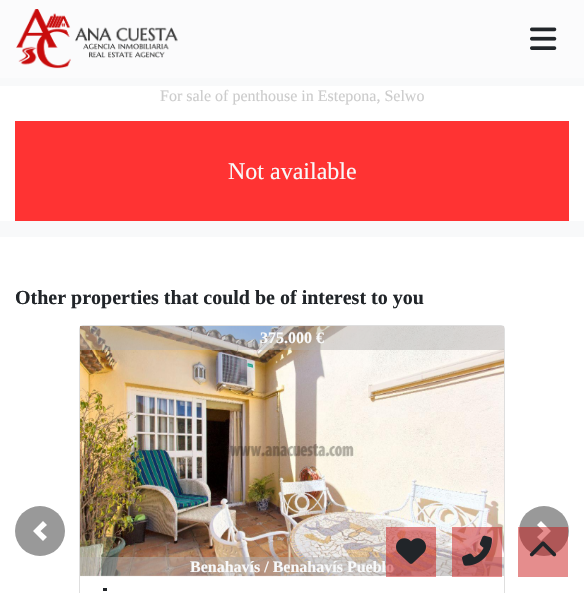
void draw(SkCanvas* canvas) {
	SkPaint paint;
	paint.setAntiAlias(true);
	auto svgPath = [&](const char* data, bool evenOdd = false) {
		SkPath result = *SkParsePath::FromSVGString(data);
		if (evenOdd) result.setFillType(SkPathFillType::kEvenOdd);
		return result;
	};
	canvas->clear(0xffffffff);
	paint.setColor(0xfffbfbfc);
	canvas->drawRect(SkRect::MakeXYWH(0, 0, 584, 78), paint);
	canvas->drawImageRect(SkImages::DeferredFromEncodedData(SkData::MakeFromFileName("img1.png")), SkRect::MakeXYWH(16, 9, 162, 60), SkSamplingOptions());
	canvas->drawImageRect(SkImages::DeferredFromEncodedData(SkData::MakeFromFileName("img2.png")), SkRect::MakeXYWH(530, 27, 27, 23), SkSamplingOptions());
	paint.setColor(0xfff8f9fa);
	canvas->drawRect(SkRect::MakeXYWH(0, 78, 584, 159), paint);
	paint.setColor(0xffffffff);
	canvas->drawRect(SkRect::MakeXYWH(0, 86, 584, 135), paint);
	SkFont f1(fontMgr->matchFamilyStyle("Liberation Serif", SkFontStyle::Normal()), 16);
	f1.setSubpixel(true);
	paint.setColor(0xffcccccc);
	canvas->drawString("For sale of penthouse in Estepona, Selwo", 160, 101, f1, paint);
	paint.setColor(0xffff3333);
	canvas->drawRect(SkRect::MakeXYWH(15, 121, 554, 100), paint);
	SkFont f2(fontMgr->matchFamilyStyle("Liberation Serif", SkFontStyle::Normal()), 24);
	f2.setSubpixel(true);
	paint.setColor(0xfff8f9fa);
	canvas->drawString("Not available", 228, 179, f2, paint);
	SkFont f3(fontMgr->matchFamilyStyle("Liberation Serif", SkFontStyle::Bold()), 20);
	f3.setSubpixel(true);
	paint.setColor(0xff212529);
	canvas->drawString("Other properties that could be of interest to you", 15, 304, f3, paint);
	paint.setColor(0xff999999);
	canvas->drawCircle(40, 531, 25, paint);
	paint.setColor(0xffffffff);
	canvas->drawPath(svgPath("M43 521L33 531L43 541L47 537L40.5 531L47 525Z"), paint);
	paint.setStroke(true);
	paint.setStrokeWidth(1);
	paint.setColor(0xffdfdfdf);
	canvas->drawRoundRect(SkRect::MakeXYWH(79.5, 325.5, 425, 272), 3.5, 3.5, paint);
	canvas->drawImageRect(SkImages::DeferredFromEncodedData(SkData::MakeFromFileName("img3.png")), SkRect::MakeXYWH(80, 326, 424, 251), SkSamplingOptions());
	paint.setStroke(false);
	paint.setColor(0x78b2b1b1);
	canvas->drawRect(SkRect::MakeXYWH(80, 326, 424, 24), paint);
	SkFont f4(fontMgr->matchFamilyStyle("Liberation Serif", SkFontStyle::Bold()), 16);
	f4.setSubpixel(true);
	paint.setColor(0xfff8f9fa);
	canvas->drawString("375.000 €", 260, 343, f4, paint);
	paint.setColor(0x78b2b1b1);
	canvas->drawRect(SkRect::MakeXYWH(80, 557, 424, 19), paint);
	paint.setColor(0xfff8f9fa);
	canvas->drawString("Benahavís / Benahavís Pueblo", 190, 572, f4, paint);
	paint.setColor(0xff212529);
	canvas->drawRect(SkRect::MakeXYWH(103, 588, 4, 3), paint);
	paint.setColor(0xff999999);
	canvas->drawCircle(544, 531, 25, paint);
	paint.setColor(0xffffffff);
	canvas->drawPath(svgPath("M541 521L537 525L543.5 531L537 537L541 541L551 531Z"), paint);
	paint.setColor(0x78c80c0c);
	canvas->drawRect(SkRect::MakeXYWH(386, 527, 50, 50), paint);
	canvas->drawImageRect(SkImages::DeferredFromEncodedData(SkData::MakeFromFileName("img4.png")), SkRect::MakeXYWH(396, 538, 30, 26), SkSamplingOptions());
	canvas->drawRect(SkRect::MakeXYWH(452, 527, 50, 50), paint);
	canvas->drawImageRect(SkImages::DeferredFromEncodedData(SkData::MakeFromFileName("img5.png")), SkRect::MakeXYWH(462, 535, 30, 31), SkSamplingOptions());
	canvas->drawRect(SkRect::MakeXYWH(518, 527, 50, 50), paint);
	canvas->drawImageRect(SkImages::DeferredFromEncodedData(SkData::MakeFromFileName("img6.png")), SkRect::MakeXYWH(529, 541, 28, 16), SkSamplingOptions());
}
